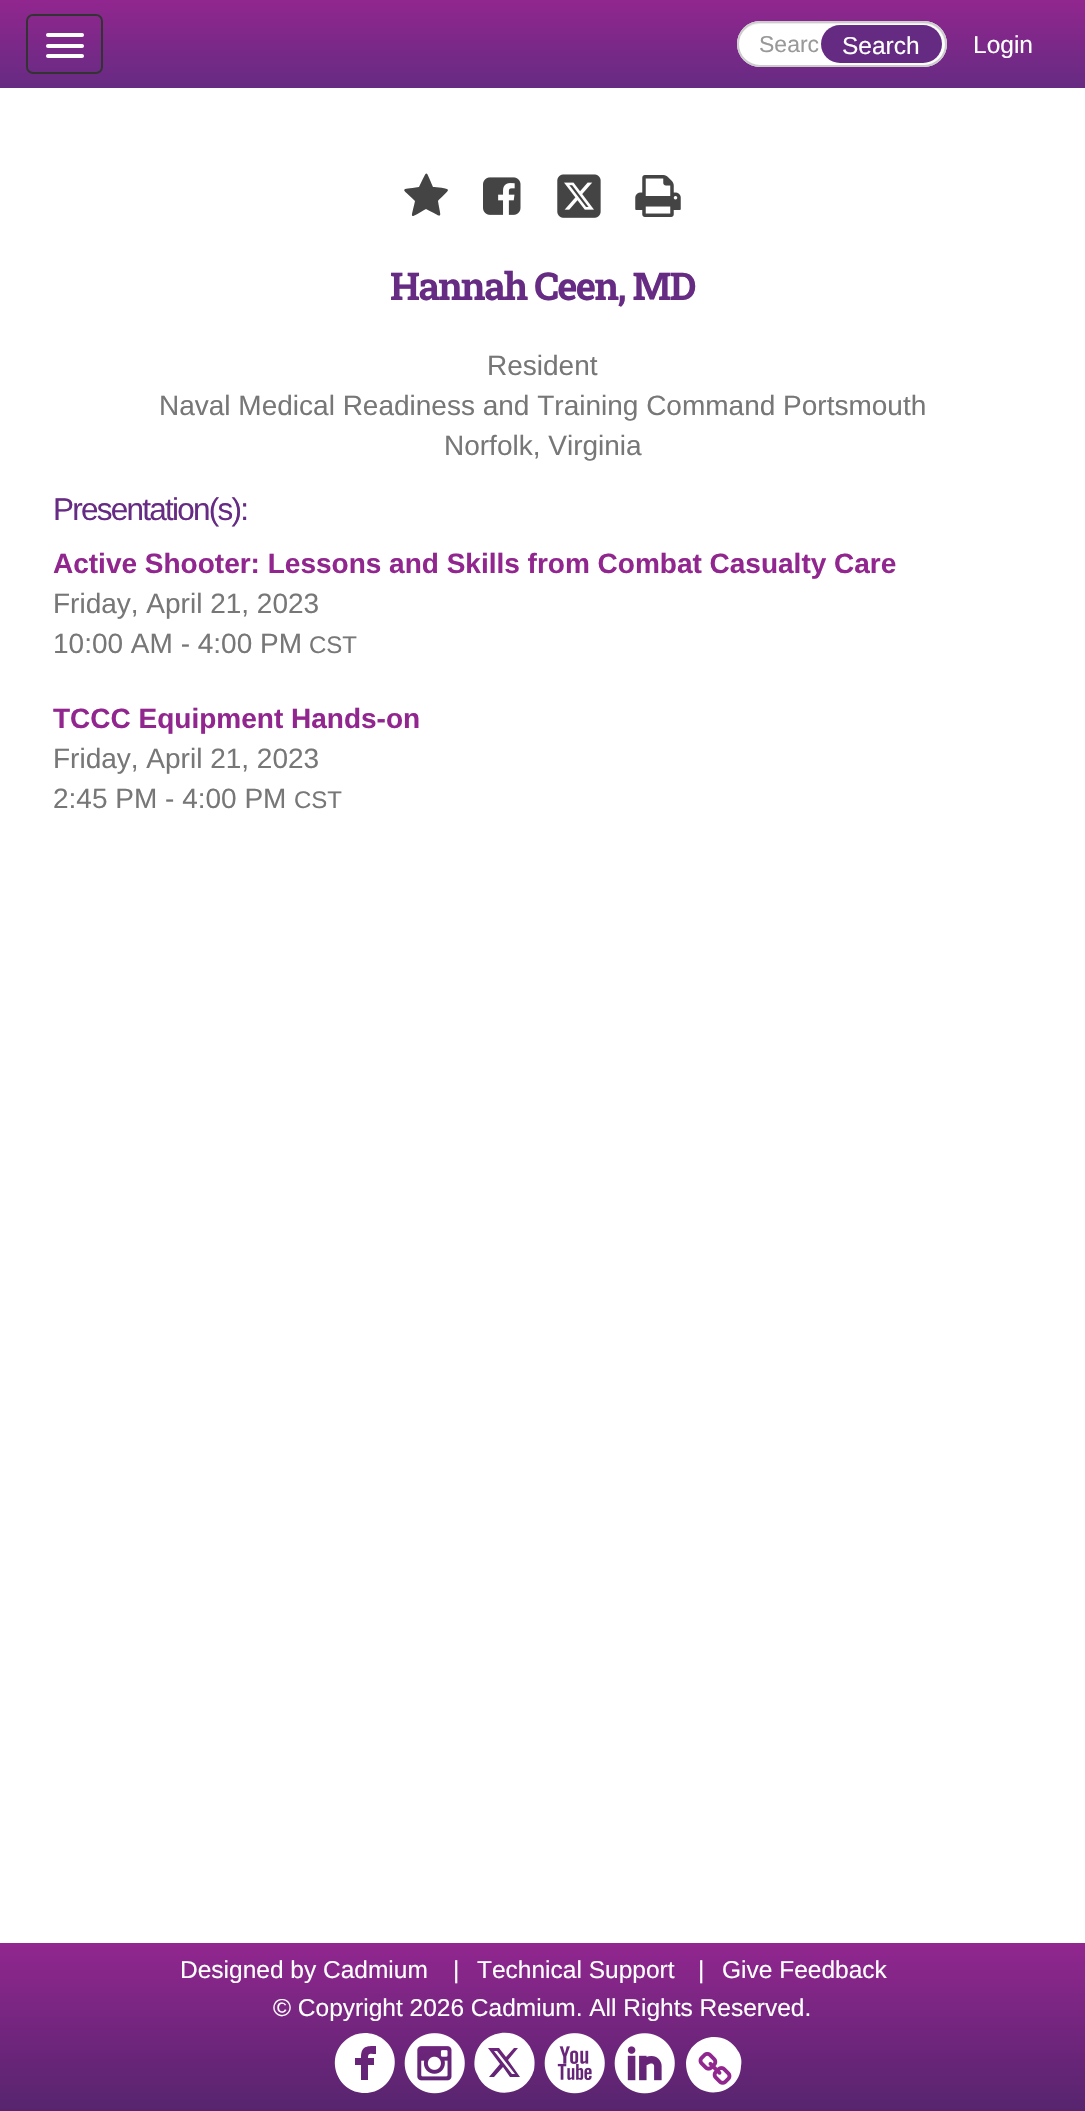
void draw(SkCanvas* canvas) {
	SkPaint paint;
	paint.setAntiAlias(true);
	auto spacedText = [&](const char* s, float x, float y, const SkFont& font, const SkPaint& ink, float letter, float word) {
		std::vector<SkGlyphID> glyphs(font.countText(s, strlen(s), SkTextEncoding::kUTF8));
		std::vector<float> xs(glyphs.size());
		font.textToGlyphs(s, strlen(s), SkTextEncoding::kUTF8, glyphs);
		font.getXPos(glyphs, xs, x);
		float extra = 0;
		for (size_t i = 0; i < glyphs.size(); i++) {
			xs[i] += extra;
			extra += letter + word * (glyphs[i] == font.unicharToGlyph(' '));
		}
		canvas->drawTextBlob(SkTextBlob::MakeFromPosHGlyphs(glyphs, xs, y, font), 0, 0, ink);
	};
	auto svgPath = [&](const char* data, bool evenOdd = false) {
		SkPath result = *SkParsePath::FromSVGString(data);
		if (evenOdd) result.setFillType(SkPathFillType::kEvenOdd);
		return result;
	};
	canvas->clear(0xffffffff);
	{
		const SkColor colors[] = {0xff91268f, 0xff662b82};
		const float stops[] = {0, 1};
		const SkPoint ends[] = {{543, 0}, {543, 88}};
		paint.setShader(SkGradientShader::MakeLinear(ends, colors, stops, 2, SkTileMode::kClamp));
		paint.setAlpha(255);
	}
	canvas->drawRect(SkRect::MakeXYWH(0, 0, 1085, 88), paint);
	paint.setStroke(true);
	paint.setStrokeWidth(2);
	paint.setShader(nullptr);
	paint.setColor(0xff333333);
	canvas->drawRoundRect(SkRect::MakeXYWH(27, 15, 75, 58), 6, 6, paint);
	paint.setStroke(false);
	paint.setColor(0xffffffff);
	canvas->drawRoundRect(SkRect::MakeXYWH(46, 33, 38, 4), 2, 2, paint);
	canvas->drawRoundRect(SkRect::MakeXYWH(46, 44, 38, 4), 2, 2, paint);
	canvas->drawRoundRect(SkRect::MakeXYWH(46, 54, 38, 4), 2, 2, paint);
	canvas->drawRoundRect(SkRect::MakeXYWH(737, 21, 210, 46), 23, 23, paint);
	paint.setColor(0xffececec);
	canvas->drawPath(svgPath("M760 24H924C936 24 944 33 945 45V44C945 32 936 23 924 23H760C752 23 744 28 741 35C745 28 752 24 760 24Z"), paint);
	paint.setStroke(true);
	paint.setColor(0xffcccccc);
	canvas->drawRoundRect(SkRect::MakeXYWH(738, 22, 208, 44), 22, 22, paint);
	SkFont f1(fontMgr->matchFamilyStyle("Liberation Sans", SkFontStyle::Normal()), 23);
	f1.setSubpixel(true);
	paint.setStroke(false);
	paint.setColor(0xff999999);
	canvas->drawString("Searc", 759, 52, f1, paint);
	paint.setColor(0xff652b82);
	canvas->drawRoundRect(SkRect::MakeXYWH(821, 25, 121, 38), 19, 19, paint);
	SkFont f2(fontMgr->matchFamilyStyle("Liberation Sans", SkFontStyle::Normal()), 24.5);
	f2.setSubpixel(true);
	paint.setColor(0xffffffff);
	canvas->drawString("Search", 842, 54, f2, paint);
	canvas->drawString("Login", 973, 53, f2, paint);
	paint.setColor(0xff444444);
	canvas->drawPath(svgPath("M448 190C448 192 439 199 438 201C441 220 444 218 426 209C408 219 411 220 415 201C401 187 399 190 419 187C428 169 425 169 433 187C436 187 448 188 448 190Z"), paint);
	canvas->drawImageRect(SkImages::DeferredFromEncodedData(SkData::MakeFromFileName("img1.png")), SkRect::MakeXYWH(483, 177, 38, 38), SkSamplingOptions());
	canvas->drawImageRect(SkImages::DeferredFromEncodedData(SkData::MakeFromFileName("img2.png")), SkRect::MakeXYWH(557, 174, 44, 44), SkSamplingOptions());
	canvas->drawImageRect(SkImages::DeferredFromEncodedData(SkData::MakeFromFileName("img3.png")), SkRect::MakeXYWH(635, 175, 46, 42), SkSamplingOptions());
	SkFont f3(fontMgr->matchFamilyStyle("Roboto Slab", SkFontStyle::Bold()), 38.5);
	f3.setSubpixel(true);
	paint.setColor(0xff662c83);
	spacedText("Hannah Ceen, MD", 390, 300, f3, paint, -1.75, 0);
	SkFont f4(fontMgr->matchFamilyStyle("Liberation Sans", SkFontStyle::Normal()), 28);
	f4.setSubpixel(true);
	paint.setColor(0xff777777);
	canvas->drawString("Resident", 487, 375, f4, paint);
	canvas->drawString("Naval Medical Readiness and Training Command Portsmouth", 159, 415, f4, paint);
	canvas->drawString("Norfolk, Virginia", 444, 455, f4, paint);
	SkFont f5(fontMgr->matchFamilyStyle("Liberation Sans", SkFontStyle::Normal()), 31.5);
	f5.setSubpixel(true);
	paint.setColor(0xff662c83);
	spacedText("Presentation(s):", 53, 520, f5, paint, -1.75, 0);
	SkFont f6(fontMgr->matchFamilyStyle("Liberation Sans", SkFontStyle::Bold()), 28);
	f6.setSubpixel(true);
	paint.setColor(0xff91268f);
	canvas->drawString("Active Shooter: Lessons and Skills from Combat Casualty Care", 53, 573, f6, paint);
	paint.setColor(0xff777777);
	canvas->drawString("Friday, April 21, 2023", 53, 613, f4, paint);
	canvas->drawString("10:00 AM - 4:00 PM", 53, 653, f4, paint);
	SkFont f7(fontMgr->matchFamilyStyle("Liberation Sans", SkFontStyle::Normal()), 24);
	f7.setSubpixel(true);
	canvas->drawString("CST", 309, 653, f7, paint);
	paint.setColor(0xff91268f);
	canvas->drawString("TCCC Equipment Hands-on", 53, 728, f6, paint);
	paint.setColor(0xff777777);
	canvas->drawString("Friday, April 21, 2023", 53, 768, f4, paint);
	canvas->drawString("2:45 PM - 4:00 PM", 53, 808, f4, paint);
	canvas->drawString("CST", 294, 808, f7, paint);
	{
		const SkColor colors[] = {0xff91268f, 0xff56256e};
		const float stops[] = {0, 1};
		const SkPoint ends[] = {{543, 1943}, {543, 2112}};
		paint.setShader(SkGradientShader::MakeLinear(ends, colors, stops, 2, SkTileMode::kClamp));
		paint.setAlpha(255);
	}
	canvas->drawRect(SkRect::MakeXYWH(0, 1943, 1085, 168), paint);
	paint.setShader(nullptr);
	paint.setColor(0xffffffff);
	canvas->drawString("Designed by Cadmium", 180, 1978, f2, paint);
	canvas->drawString("|", 453, 1978, f2, paint);
	canvas->drawString("Technical Support", 477, 1978, f2, paint);
	canvas->drawString("|", 698, 1978, f2, paint);
	canvas->drawString("Give Feedback", 722, 1978, f2, paint);
	canvas->drawString("© Copyright 2026 Cadmium. All Rights Reserved.", 273, 2016, f2, paint);
	canvas->drawPath(svgPath("M365 2033C371 2033 378 2035 383 2039C406 2056 393 2093 365 2093C336 2093 324 2056 347 2039C352 2035 358 2033 365 2033ZM376 2046C366 2046 361 2046 361 2058H355V2065H361V2080H368V2065H374V2058H368C368 2052 371 2054 376 2054Z"), paint);
	canvas->drawImageRect(SkImages::DeferredFromEncodedData(SkData::MakeFromFileName("img4.png")), SkRect::MakeXYWH(404, 2033, 61, 61), SkSamplingOptions());
	canvas->drawPath(svgPath("M494 2051H497L515 2074H512ZM532 2051C535 2057 535 2064 534 2070C526 2098 488 2101 477 2074C474 2069 474 2063 475 2057C481 2028 521 2024 532 2051ZM510 2077H520L508 2060L518 2048H514L506 2057L499 2048H488L500 2064L489 2077H494L503 2067Z"), paint);
	canvas->drawImageRect(SkImages::DeferredFromEncodedData(SkData::MakeFromFileName("img5.png")), SkRect::MakeXYWH(544, 2033, 61, 61), SkSamplingOptions());
	canvas->drawImageRect(SkImages::DeferredFromEncodedData(SkData::MakeFromFileName("img6.png")), SkRect::MakeXYWH(614, 2033, 61, 61), SkSamplingOptions());
	canvas->drawPath(svgPath("M738 2051C741 2055 742 2061 741 2066C740 2094 703 2102 690 2079C687 2074 686 2068 686 2063C688 2036 724 2027 738 2051Z"), paint);
	canvas->drawImageRect(SkImages::DeferredFromEncodedData(SkData::MakeFromFileName("img7.png")), SkRect::MakeXYWH(698, 2052, 34, 33), SkSamplingOptions());
}
